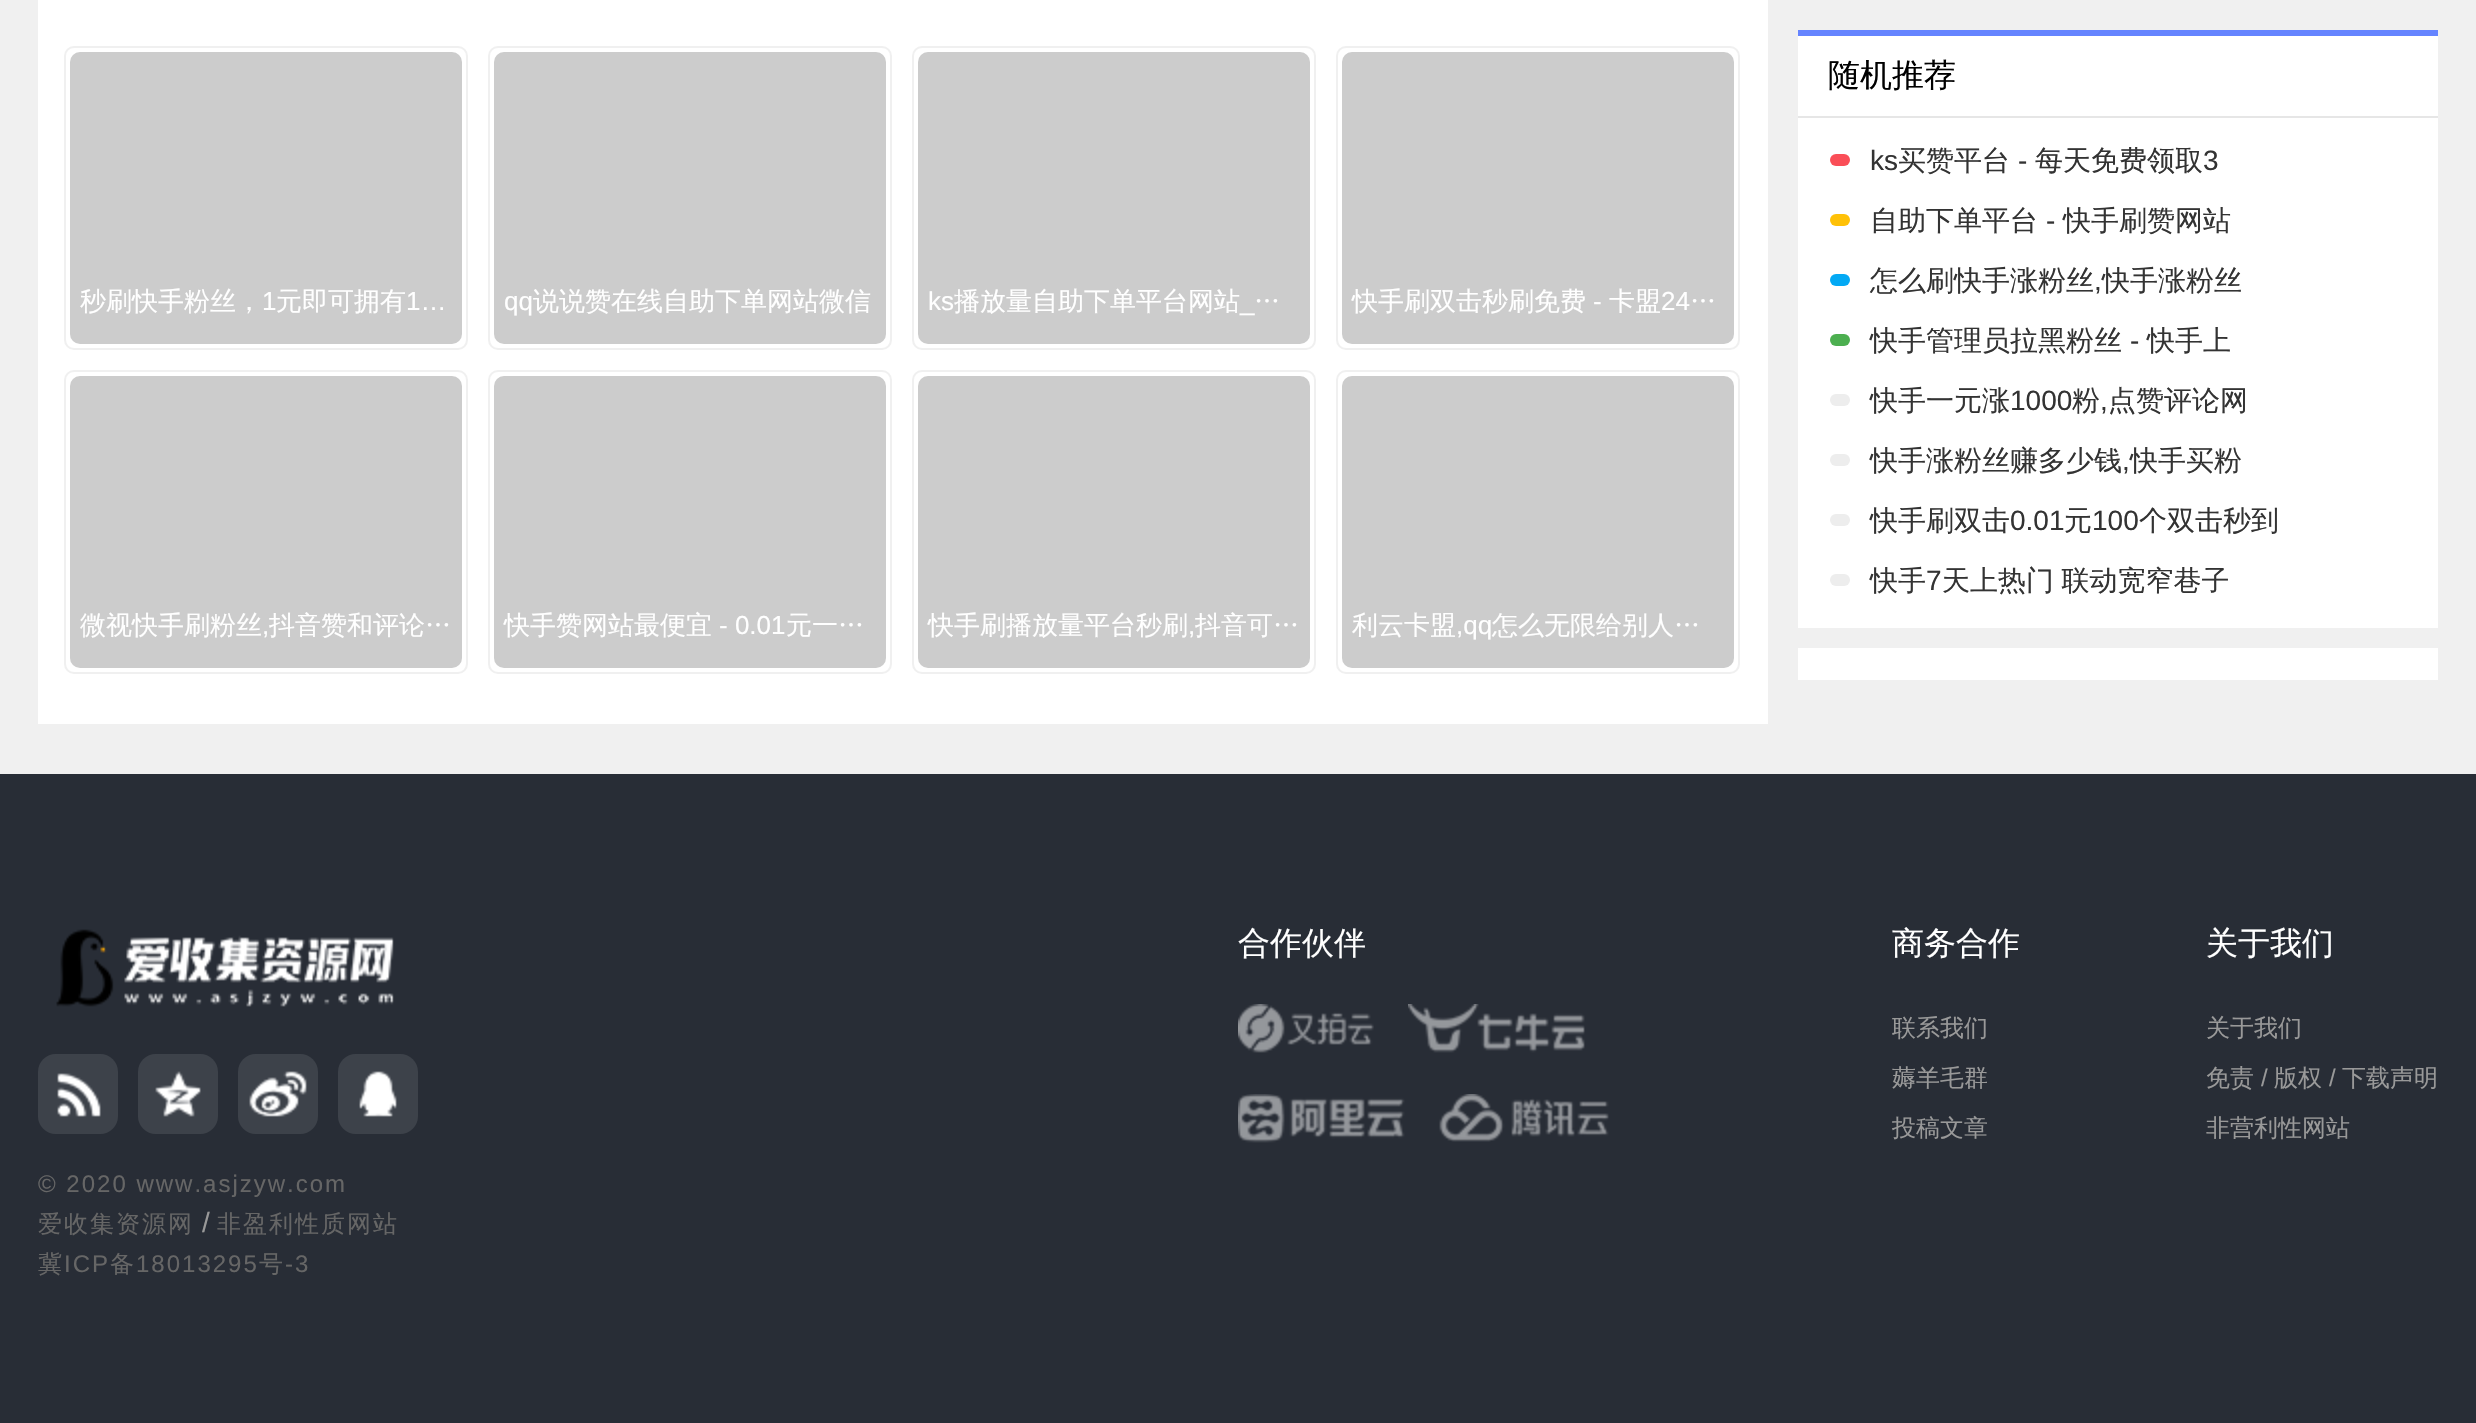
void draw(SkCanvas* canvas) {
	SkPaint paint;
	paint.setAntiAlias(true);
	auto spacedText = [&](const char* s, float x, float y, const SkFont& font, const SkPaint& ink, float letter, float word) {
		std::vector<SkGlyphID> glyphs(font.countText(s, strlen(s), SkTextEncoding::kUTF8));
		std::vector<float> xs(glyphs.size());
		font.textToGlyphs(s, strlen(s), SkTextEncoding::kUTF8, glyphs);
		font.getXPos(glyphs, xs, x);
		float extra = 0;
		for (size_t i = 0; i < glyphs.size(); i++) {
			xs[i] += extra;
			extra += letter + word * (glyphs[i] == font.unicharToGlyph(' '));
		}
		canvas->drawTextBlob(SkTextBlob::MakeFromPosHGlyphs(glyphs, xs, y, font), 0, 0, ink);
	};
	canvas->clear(0xfff0f0f0);
	paint.setColor(0xffffffff);
	canvas->drawRect(SkRect::MakeXYWH(38, 0, 1730, 724), paint);
	paint.setStroke(true);
	paint.setStrokeWidth(2);
	paint.setColor(0xfff0f0f0);
	canvas->drawRoundRect(SkRect::MakeXYWH(65, 47, 402, 302), 9, 9, paint);
	paint.setStroke(false);
	paint.setColor(0xffcccccc);
	canvas->drawRoundRect(SkRect::MakeXYWH(70, 52, 392, 292), 10, 10, paint);
	SkFont f1(fontMgr->matchFamilyStyle("WenQuanYi Zen Hei", SkFontStyle(500, SkFontStyle::kNormal_Width, SkFontStyle::kUpright_Slant)), 26);
	f1.setSubpixel(true);
	paint.setColor(0xffffffff);
	canvas->drawString("秒刷快手粉丝，", 80, 310, f1, paint);
	SkFont f2(fontMgr->matchFamilyStyle("Liberation Sans", SkFontStyle::Normal()), 26);
	f2.setSubpixel(true);
	canvas->drawString("1", 262, 310, f2, paint);
	canvas->drawString("元即可拥有", 276, 310, f1, paint);
	canvas->drawString("1…", 406, 310, f2, paint);
	paint.setStroke(true);
	paint.setColor(0xfff0f0f0);
	canvas->drawRoundRect(SkRect::MakeXYWH(489, 47, 402, 302), 9, 9, paint);
	paint.setStroke(false);
	paint.setColor(0xffcccccc);
	canvas->drawRoundRect(SkRect::MakeXYWH(494, 52, 392, 292), 10, 10, paint);
	paint.setColor(0xffffffff);
	canvas->drawString("qq", 504, 310, f2, paint);
	canvas->drawString("说说赞在线自助下单网站微信", 533, 310, f1, paint);
	paint.setStroke(true);
	paint.setColor(0xfff0f0f0);
	canvas->drawRoundRect(SkRect::MakeXYWH(913, 47, 402, 302), 9, 9, paint);
	paint.setStroke(false);
	paint.setColor(0xffcccccc);
	canvas->drawRoundRect(SkRect::MakeXYWH(918, 52, 392, 292), 10, 10, paint);
	paint.setColor(0xffffffff);
	canvas->drawString("ks", 928, 310, f2, paint);
	canvas->drawString("播放量自助下单平台网站", 954, 310, f1, paint);
	canvas->drawString("…", 1254, 310, f1, paint);
	canvas->drawString("_", 1240, 310, f2, paint);
	paint.setStroke(true);
	paint.setColor(0xfff0f0f0);
	canvas->drawRoundRect(SkRect::MakeXYWH(1337, 47, 402, 302), 9, 9, paint);
	paint.setStroke(false);
	paint.setColor(0xffcccccc);
	canvas->drawRoundRect(SkRect::MakeXYWH(1342, 52, 392, 292), 10, 10, paint);
	paint.setColor(0xffffffff);
	canvas->drawString("快手刷双击秒刷免费", 1352, 310, f1, paint);
	canvas->drawString("卡盟", 1609, 310, f1, paint);
	canvas->drawString("24", 1661, 310, f2, paint);
	canvas->drawString("…", 1690, 310, f1, paint);
	canvas->drawString("-", 1593, 310, f2, paint);
	paint.setStroke(true);
	paint.setColor(0xfff0f0f0);
	canvas->drawRoundRect(SkRect::MakeXYWH(65, 371, 402, 302), 9, 9, paint);
	paint.setStroke(false);
	paint.setColor(0xffcccccc);
	canvas->drawRoundRect(SkRect::MakeXYWH(70, 376, 392, 292), 10, 10, paint);
	paint.setColor(0xffffffff);
	canvas->drawString("微视快手刷粉丝", 80, 634, f1, paint);
	canvas->drawString(",", 262, 634, f2, paint);
	canvas->drawString("抖音赞和评论…", 269, 634, f1, paint);
	paint.setStroke(true);
	paint.setColor(0xfff0f0f0);
	canvas->drawRoundRect(SkRect::MakeXYWH(489, 371, 402, 302), 9, 9, paint);
	paint.setStroke(false);
	paint.setColor(0xffcccccc);
	canvas->drawRoundRect(SkRect::MakeXYWH(494, 376, 392, 292), 10, 10, paint);
	paint.setColor(0xffffffff);
	canvas->drawString("快手赞网站最便宜", 504, 634, f1, paint);
	canvas->drawString("- 0.01", 719, 634, f2, paint);
	canvas->drawString("元一…", 786, 634, f1, paint);
	paint.setStroke(true);
	paint.setColor(0xfff0f0f0);
	canvas->drawRoundRect(SkRect::MakeXYWH(913, 371, 402, 302), 9, 9, paint);
	paint.setStroke(false);
	paint.setColor(0xffcccccc);
	canvas->drawRoundRect(SkRect::MakeXYWH(918, 376, 392, 292), 10, 10, paint);
	paint.setColor(0xffffffff);
	canvas->drawString("快手刷播放量平台秒刷", 928, 634, f1, paint);
	canvas->drawString(",", 1188, 634, f2, paint);
	canvas->drawString("抖音可…", 1195, 634, f1, paint);
	paint.setStroke(true);
	paint.setColor(0xfff0f0f0);
	canvas->drawRoundRect(SkRect::MakeXYWH(1337, 371, 402, 302), 9, 9, paint);
	paint.setStroke(false);
	paint.setColor(0xffcccccc);
	canvas->drawRoundRect(SkRect::MakeXYWH(1342, 376, 392, 292), 10, 10, paint);
	paint.setColor(0xffffffff);
	canvas->drawString("利云卡盟", 1352, 634, f1, paint);
	canvas->drawString(",qq", 1456, 634, f2, paint);
	canvas->drawString("怎么无限给别人…", 1492, 634, f1, paint);
	canvas->drawRect(SkRect::MakeXYWH(1798, 36, 640, 592), paint);
	paint.setColor(0xff6584ff);
	canvas->drawRect(SkRect::MakeXYWH(1798, 30, 640, 6), paint);
	paint.setColor(0xffe6e6e6);
	canvas->drawRect(SkRect::MakeXYWH(1798, 116, 640, 2), paint);
	SkFont f3(fontMgr->matchFamilyStyle("WenQuanYi Zen Hei", SkFontStyle(500, SkFontStyle::kNormal_Width, SkFontStyle::kUpright_Slant)), 32);
	f3.setSubpixel(true);
	paint.setColor(0xff000000);
	canvas->drawString("随机推荐", 1828, 86, f3, paint);
	paint.setColor(0xfffa4e57);
	canvas->drawRoundRect(SkRect::MakeXYWH(1830, 154, 20, 12), 6, 6, paint);
	SkFont f4(fontMgr->matchFamilyStyle("Liberation Sans", SkFontStyle::Normal()), 28);
	f4.setSubpixel(true);
	paint.setColor(0xff333333);
	canvas->drawString("ks", 1870, 170, f4, paint);
	SkFont f5(fontMgr->matchFamilyStyle("WenQuanYi Zen Hei", SkFontStyle(500, SkFontStyle::kNormal_Width, SkFontStyle::kUpright_Slant)), 28);
	f5.setSubpixel(true);
	canvas->drawString("买赞平台", 1898, 170, f5, paint);
	canvas->drawString("-", 2018, 170, f4, paint);
	canvas->drawString("每天免费领取", 2035, 170, f5, paint);
	canvas->drawString("3", 2203, 170, f4, paint);
	paint.setColor(0xffffc107);
	canvas->drawRoundRect(SkRect::MakeXYWH(1830, 214, 20, 12), 6, 6, paint);
	paint.setColor(0xff333333);
	canvas->drawString("自助下单平台", 1870, 230, f5, paint);
	canvas->drawString("-", 2046, 230, f4, paint);
	canvas->drawString("快手刷赞网站", 2063, 230, f5, paint);
	paint.setColor(0xff03a9f4);
	canvas->drawRoundRect(SkRect::MakeXYWH(1830, 274, 20, 12), 6, 6, paint);
	paint.setColor(0xff333333);
	canvas->drawString("怎么刷快手涨粉丝", 1870, 290, f5, paint);
	canvas->drawString(",", 2094, 290, f4, paint);
	canvas->drawString("快手涨粉丝", 2102, 290, f5, paint);
	paint.setColor(0xff4caf50);
	canvas->drawRoundRect(SkRect::MakeXYWH(1830, 334, 20, 12), 6, 6, paint);
	paint.setColor(0xff333333);
	canvas->drawString("快手管理员拉黑粉丝", 1870, 350, f5, paint);
	canvas->drawString("-", 2130, 350, f4, paint);
	canvas->drawString("快手上", 2147, 350, f5, paint);
	paint.setColor(0xffededed);
	canvas->drawRoundRect(SkRect::MakeXYWH(1830, 394, 20, 12), 6, 6, paint);
	paint.setColor(0xff333333);
	canvas->drawString("快手一元涨", 1870, 410, f5, paint);
	canvas->drawString("1000", 2010, 410, f4, paint);
	canvas->drawString("粉", 2072, 410, f5, paint);
	canvas->drawString(",", 2100, 410, f4, paint);
	canvas->drawString("点赞评论网", 2108, 410, f5, paint);
	paint.setColor(0xffededed);
	canvas->drawRoundRect(SkRect::MakeXYWH(1830, 454, 20, 12), 6, 6, paint);
	paint.setColor(0xff333333);
	canvas->drawString("快手涨粉丝赚多少钱", 1870, 470, f5, paint);
	canvas->drawString(",", 2122, 470, f4, paint);
	canvas->drawString("快手买粉", 2130, 470, f5, paint);
	paint.setColor(0xffededed);
	canvas->drawRoundRect(SkRect::MakeXYWH(1830, 514, 20, 12), 6, 6, paint);
	paint.setColor(0xff333333);
	canvas->drawString("快手刷双击", 1870, 530, f5, paint);
	canvas->drawString("0.01", 2010, 530, f4, paint);
	canvas->drawString("元", 2064, 530, f5, paint);
	canvas->drawString("100", 2092, 530, f4, paint);
	canvas->drawString("个双击秒到", 2139, 530, f5, paint);
	paint.setColor(0xffededed);
	canvas->drawRoundRect(SkRect::MakeXYWH(1830, 574, 20, 12), 6, 6, paint);
	paint.setColor(0xff333333);
	canvas->drawString("快手", 1870, 590, f5, paint);
	canvas->drawString("7", 1926, 590, f4, paint);
	spacedText("天上热门 联动宽窄巷子", 1942, 590, f5, paint, 0, -1);
	paint.setColor(0xffffffff);
	canvas->drawRect(SkRect::MakeXYWH(1798, 648, 640, 32), paint);
	paint.setColor(0xff282d36);
	canvas->drawRect(SkRect::MakeXYWH(0, 774, 2476, 649), paint);
	paint.setColor(0xffffffff);
	canvas->drawString("合作伙伴", 1238, 954, f3, paint);
	canvas->drawImageRect(SkImages::DeferredFromEncodedData(SkData::MakeFromFileName("img1.png")), SkRect::MakeXYWH(1238, 1004, 136, 49), SkSamplingOptions());
	canvas->drawImageRect(SkImages::DeferredFromEncodedData(SkData::MakeFromFileName("img2.png")), SkRect::MakeXYWH(1408, 1004, 177, 49), SkSamplingOptions());
	canvas->drawImageRect(SkImages::DeferredFromEncodedData(SkData::MakeFromFileName("img3.png")), SkRect::MakeXYWH(1238, 1094, 167, 49), SkSamplingOptions());
	canvas->drawImageRect(SkImages::DeferredFromEncodedData(SkData::MakeFromFileName("img4.png")), SkRect::MakeXYWH(1439, 1094, 170, 48), SkSamplingOptions());
	canvas->drawString("商务合作", 1892, 954, f3, paint);
	SkFont f6(fontMgr->matchFamilyStyle("WenQuanYi Zen Hei", SkFontStyle(500, SkFontStyle::kNormal_Width, SkFontStyle::kUpright_Slant)), 24);
	f6.setSubpixel(true);
	paint.setColor(0xff999999);
	canvas->drawString("联系我们", 1892, 1036, f6, paint);
	canvas->drawString("薅羊毛群", 1892, 1086, f6, paint);
	canvas->drawString("投稿文章", 1892, 1136, f6, paint);
	paint.setColor(0xffffffff);
	canvas->drawString("关于我们", 2206, 954, f3, paint);
	paint.setColor(0xff999999);
	canvas->drawString("关于我们", 2206, 1036, f6, paint);
	canvas->drawString("免责", 2206, 1086, f6, paint);
	SkFont f7(fontMgr->matchFamilyStyle("Liberation Sans", SkFontStyle::Normal()), 24);
	f7.setSubpixel(true);
	canvas->drawString("/", 2261, 1086, f7, paint);
	canvas->drawString("版权", 2274, 1086, f6, paint);
	canvas->drawString("/", 2329, 1086, f7, paint);
	canvas->drawString("下载声明", 2342, 1086, f6, paint);
	canvas->drawString("非营利性网站", 2206, 1136, f6, paint);
	canvas->drawImageRect(SkImages::DeferredFromEncodedData(SkData::MakeFromFileName("img5.png")), SkRect::MakeXYWH(56, 929, 338, 78), SkSamplingOptions());
	paint.setColor(0xff3d424a);
	canvas->drawRoundRect(SkRect::MakeXYWH(38, 1054, 80, 80), 18, 18, paint);
	canvas->drawImageRect(SkImages::DeferredFromEncodedData(SkData::MakeFromFileName("img6.png")), SkRect::MakeXYWH(57, 1073, 44, 44), SkSamplingOptions());
	canvas->drawRoundRect(SkRect::MakeXYWH(138, 1054, 80, 80), 18, 18, paint);
	canvas->drawImageRect(SkImages::DeferredFromEncodedData(SkData::MakeFromFileName("img7.png")), SkRect::MakeXYWH(155, 1071, 46, 46), SkSamplingOptions());
	canvas->drawRoundRect(SkRect::MakeXYWH(238, 1054, 80, 80), 18, 18, paint);
	canvas->drawImageRect(SkImages::DeferredFromEncodedData(SkData::MakeFromFileName("img8.png")), SkRect::MakeXYWH(249, 1071, 58, 46), SkSamplingOptions());
	canvas->drawRoundRect(SkRect::MakeXYWH(338, 1054, 80, 80), 18, 18, paint);
	canvas->drawImageRect(SkImages::DeferredFromEncodedData(SkData::MakeFromFileName("img9.png")), SkRect::MakeXYWH(359, 1071, 38, 46), SkSamplingOptions());
	paint.setColor(0xff666666);
	spacedText("© 2020 www.asjzyw.com", 38, 1192, f7, paint, 2, 0);
	spacedText("爱收集资源网", 38, 1232, f6, paint, 2, 0);
	paint.setColor(0xff999999);
	canvas->drawString("/", 202, 1232, f4, paint);
	paint.setColor(0xff666666);
	spacedText("非盈利性质网站", 217, 1232, f6, paint, 2, 0);
	spacedText("冀", 38, 1272, f6, paint, 2, 0);
	spacedText("ICP", 64, 1272, f7, paint, 2, 0);
	spacedText("备", 110, 1272, f6, paint, 2, 0);
	spacedText("18013295", 136, 1272, f7, paint, 2, 0);
	spacedText("号", 259, 1272, f6, paint, 2, 0);
	spacedText("-3", 285, 1272, f7, paint, 2, 0);
}
